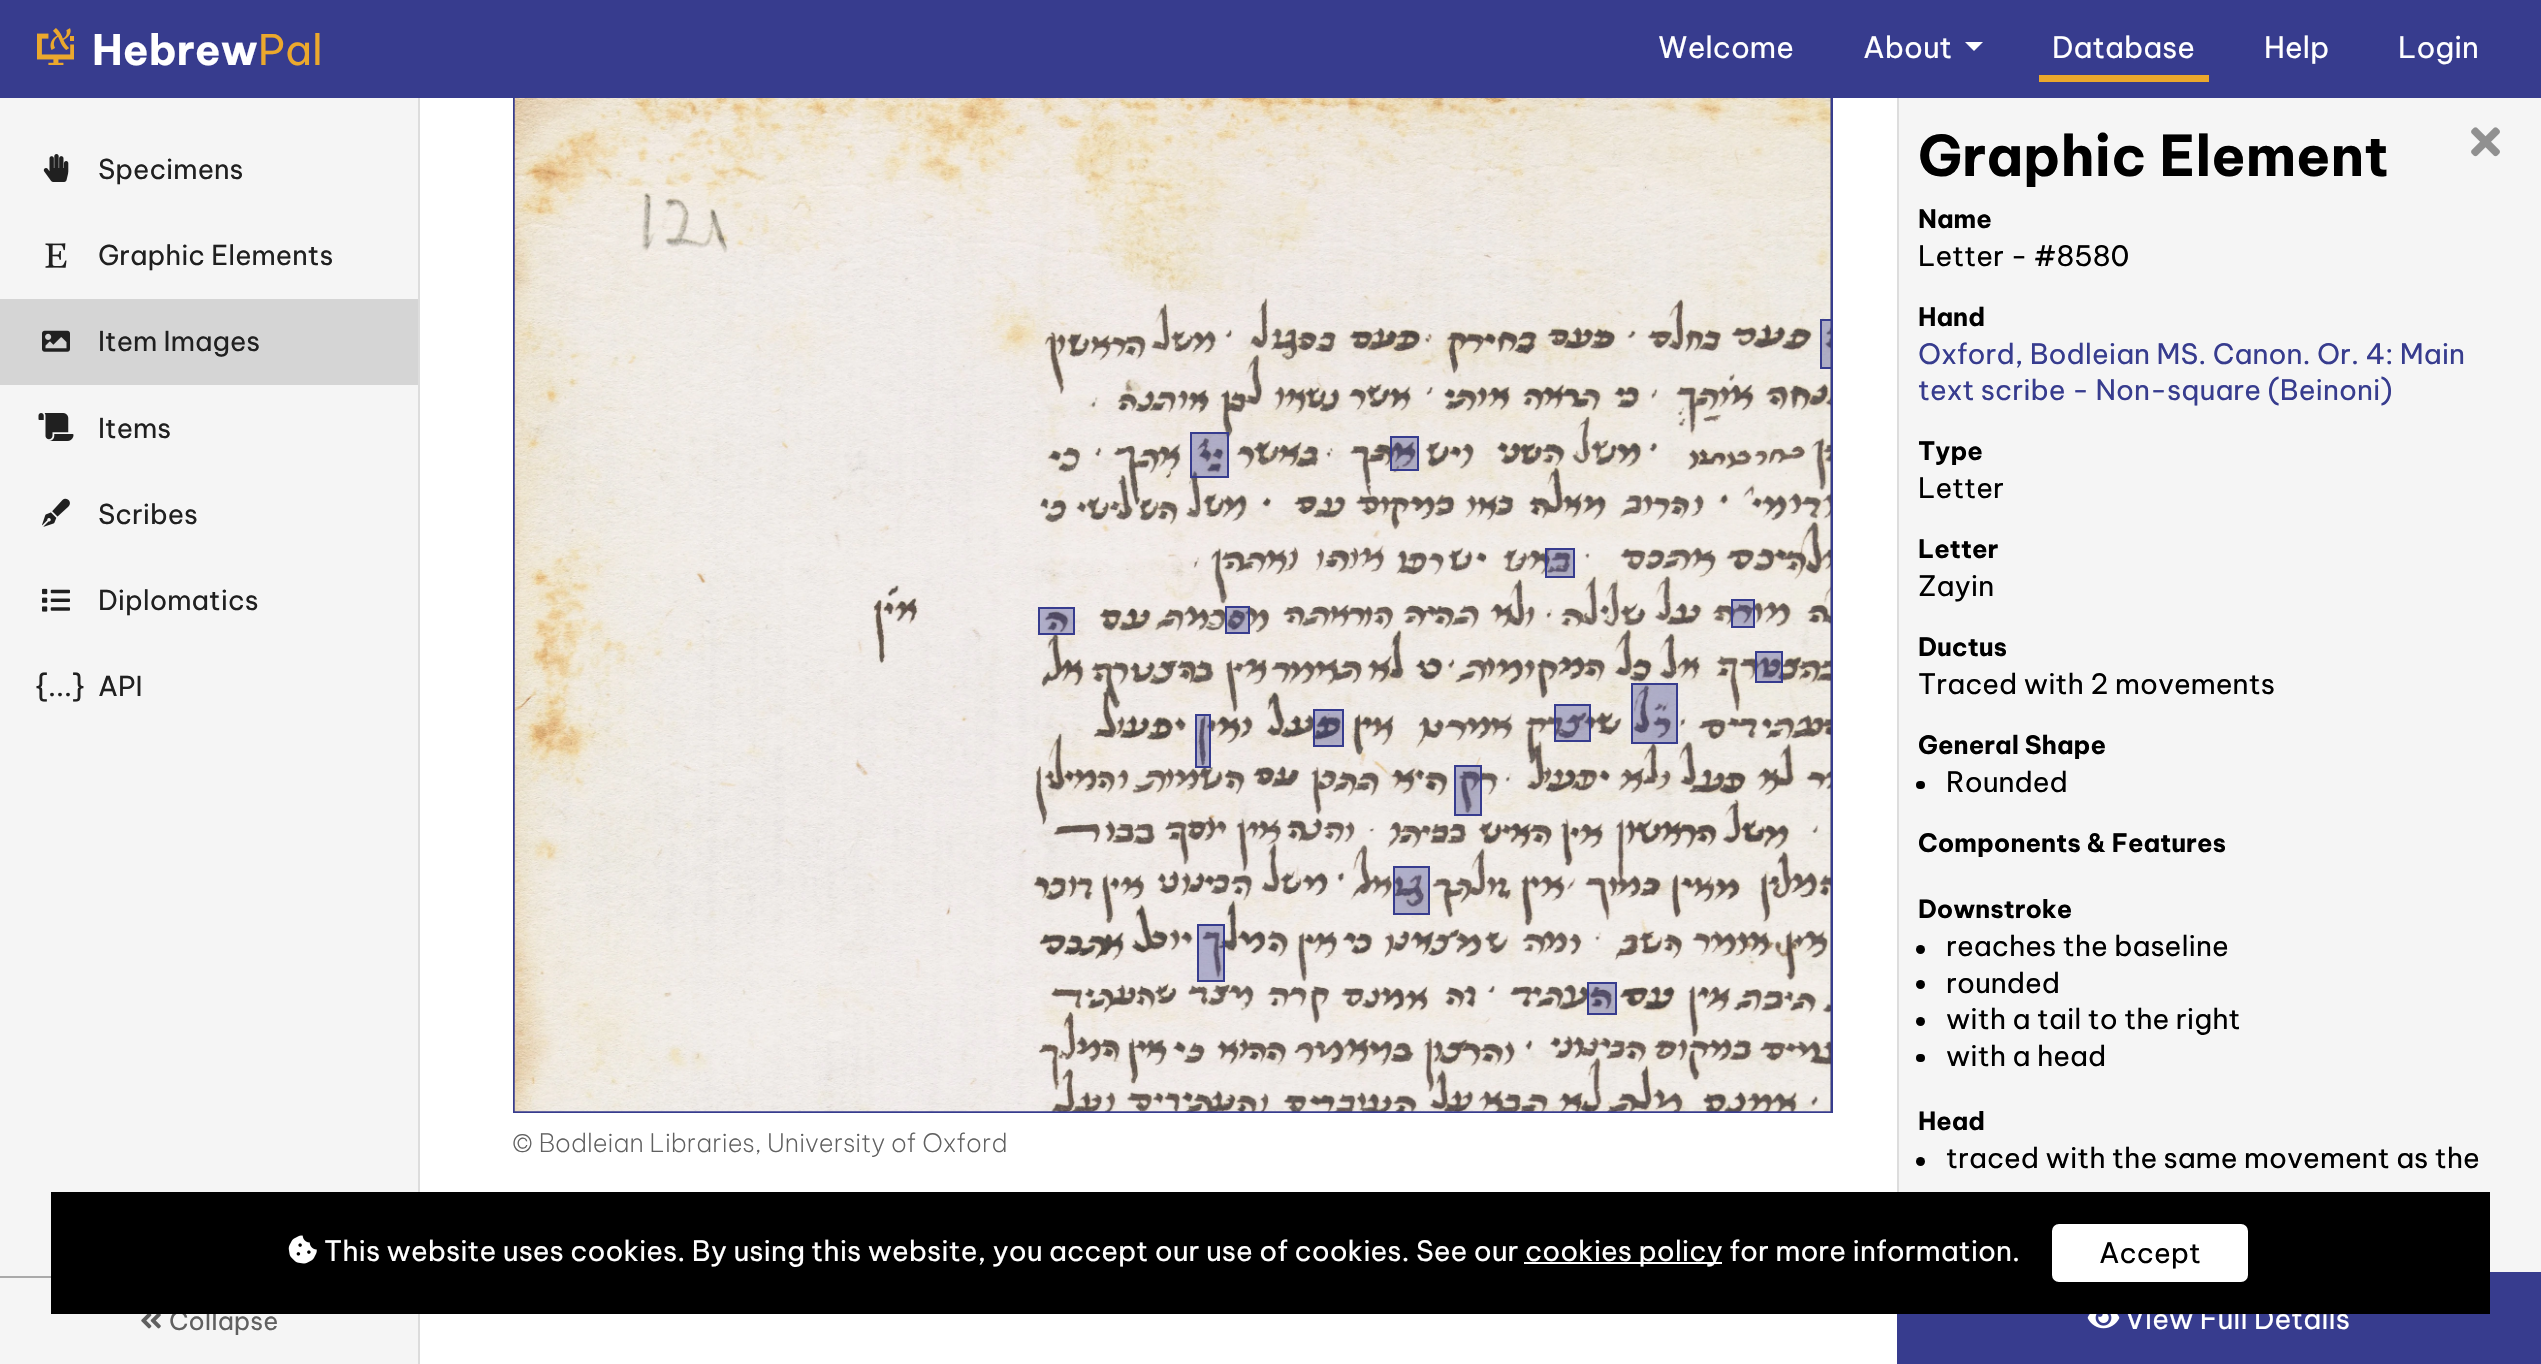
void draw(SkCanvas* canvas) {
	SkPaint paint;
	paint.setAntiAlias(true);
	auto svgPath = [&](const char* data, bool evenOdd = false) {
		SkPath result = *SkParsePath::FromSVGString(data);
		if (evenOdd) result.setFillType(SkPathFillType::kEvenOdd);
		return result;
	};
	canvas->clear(0xffffffff);
	paint.setColor(0xff373c8e);
	canvas->drawRect(SkRect::MakeXYWH(0, 0, 2541, 98), paint);
	canvas->drawImageRect(SkImages::DeferredFromEncodedData(SkData::MakeFromFileName("img1.png")), SkRect::MakeXYWH(37, 28, 37, 37), SkSamplingOptions());
	SkFont f1(fontMgr->matchFamilyStyle("Be Vietnam Pro", SkFontStyle::Bold()), 42);
	f1.setSubpixel(true);
	paint.setColor(0xffffffff);
	canvas->drawString("Hebrew", 92, 65, f1, paint);
	SkFont f2(fontMgr->matchFamilyStyle("Be Vietnam Pro", SkFontStyle::Normal()), 42);
	f2.setSubpixel(true);
	paint.setColor(0xffeba82d);
	canvas->drawString("Pal", 258, 65, f2, paint);
	SkFont f3(fontMgr->matchFamilyStyle("Be Vietnam Pro", SkFontStyle::Normal()), 29.5);
	f3.setSubpixel(true);
	paint.setColor(0xffffffff);
	canvas->drawString("Welcome", 1658, 58, f3, paint);
	canvas->drawString("About", 1863, 58, f3, paint);
	canvas->drawPath(svgPath("M1965 42H1983L1974 51Z"), paint);
	paint.setColor(0xffeba82d);
	canvas->drawRect(SkRect::MakeXYWH(2039, 75, 170, 7), paint);
	paint.setColor(0xffffffff);
	canvas->drawString("Database", 2052, 58, f3, paint);
	canvas->drawString("Help", 2264, 58, f3, paint);
	canvas->drawString("Login", 2398, 58, f3, paint);
	paint.setColor(0xfff5f5f5);
	canvas->drawRect(SkRect::MakeXYWH(0, 98, 418, 1178), paint);
	paint.setColor(0xffdddddd);
	canvas->drawRect(SkRect::MakeXYWH(418, 98, 2, 1094), paint);
	canvas->drawImageRect(SkImages::DeferredFromEncodedData(SkData::MakeFromFileName("img2.png")), SkRect::MakeXYWH(43, 154, 26, 28), SkSamplingOptions());
	SkFont f4(fontMgr->matchFamilyStyle("Be Vietnam Pro", SkFontStyle::Normal()), 27.25);
	f4.setSubpixel(true);
	paint.setColor(0xff202020);
	canvas->drawString("Specimens", 98, 179, f4, paint);
	canvas->drawImageRect(SkImages::DeferredFromEncodedData(SkData::MakeFromFileName("img3.png")), SkRect::MakeXYWH(45, 243, 22, 25), SkSamplingOptions());
	canvas->drawString("Graphic Elements", 98, 265, f4, paint);
	paint.setColor(0xffd5d5d5);
	canvas->drawRect(SkRect::MakeXYWH(0, 299, 418, 86), paint);
	canvas->drawImageRect(SkImages::DeferredFromEncodedData(SkData::MakeFromFileName("img4.png")), SkRect::MakeXYWH(42, 330, 28, 22), SkSamplingOptions());
	paint.setColor(0xff202020);
	canvas->drawString("Item Images", 98, 351, f4, paint);
	canvas->drawImageRect(SkImages::DeferredFromEncodedData(SkData::MakeFromFileName("img5.png")), SkRect::MakeXYWH(38, 413, 36, 28), SkSamplingOptions());
	canvas->drawString("Items", 98, 438, f4, paint);
	canvas->drawImageRect(SkImages::DeferredFromEncodedData(SkData::MakeFromFileName("img6.png")), SkRect::MakeXYWH(42, 498, 28, 29), SkSamplingOptions());
	canvas->drawString("Scribes", 98, 524, f4, paint);
	canvas->drawImageRect(SkImages::DeferredFromEncodedData(SkData::MakeFromFileName("img7.png")), SkRect::MakeXYWH(42, 588, 28, 24), SkSamplingOptions());
	canvas->drawString("Diplomatics", 98, 610, f4, paint);
	SkFont f5(fontMgr->matchFamilyStyle("Be Vietnam Pro", SkFontStyle::Normal()), 28);
	f5.setSubpixel(true);
	canvas->drawString("{...}", 36, 696, f5, paint);
	canvas->drawString("API", 98, 696, f4, paint);
	paint.setColor(0xfff5f5f5);
	canvas->drawRect(SkRect::MakeXYWH(0, 1278, 420, 86), paint);
	paint.setColor(0xffaaaaaa);
	canvas->drawPath(svgPath("M0 1276H420L418 1278H0Z"), paint);
	paint.setColor(0x1a000000);
	canvas->drawPath(svgPath("M420 1276V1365H418V1278Z"), paint);
	canvas->drawImageRect(SkImages::DeferredFromEncodedData(SkData::MakeFromFileName("img8.png")), SkRect::MakeXYWH(141, 1314, 20, 15), SkSamplingOptions());
	SkFont f6(fontMgr->matchFamilyStyle("Be Vietnam Pro", SkFontStyle::Normal()), 25.25);
	f6.setSubpixel(true);
	paint.setColor(0xff606060);
	canvas->drawString("Collapse", 169, 1330, f6, paint);
	paint.setColor(0xff2d2f5a);
	canvas->drawRect(SkRect::MakeXYWH(1830, 98, 1, 1013), paint);
	paint.setColor(0xff373c8e);
	canvas->drawRect(SkRect::MakeXYWH(1831, 98, 2, 1015), paint);
	canvas->drawRect(SkRect::MakeXYWH(513, 1111, 1319, 2), paint);
	canvas->drawRect(SkRect::MakeXYWH(513, 98, 2, 1015), paint);
	canvas->drawImageRect(SkImages::DeferredFromEncodedData(SkData::MakeFromFileName("img9.png")), SkRect::MakeXYWH(514, 98, 1317, 1014), SkSamplingOptions());
	paint.setColor(0x59373c8e);
	canvas->drawRect(SkRect::MakeXYWH(1822, 321, 9, 46), paint);
	canvas->save();
	canvas->clipRect(SkRect::MakeXYWH(515, 89, 1316, 1022));
	paint.setStroke(true);
	paint.setStrokeWidth(2);
	paint.setColor(0xff373c8e);
	canvas->drawRect(SkRect::MakeXYWH(1821, 320, 26, 48), paint);
	canvas->restore();
	paint.setStroke(false);
	paint.setColor(0x59373c8e);
	canvas->drawRect(SkRect::MakeXYWH(1191, 433, 37, 44), paint);
	paint.setStroke(true);
	paint.setColor(0xff373c8e);
	canvas->drawRect(SkRect::MakeXYWH(1191, 433, 37, 44), paint);
	paint.setStroke(false);
	paint.setColor(0x59373c8e);
	canvas->drawRect(SkRect::MakeXYWH(1391, 437, 27, 33), paint);
	paint.setStroke(true);
	paint.setColor(0xff373c8e);
	canvas->drawRect(SkRect::MakeXYWH(1391, 437, 27, 33), paint);
	paint.setStroke(false);
	paint.setColor(0x59373c8e);
	canvas->drawRect(SkRect::MakeXYWH(1546, 549, 28, 28), paint);
	paint.setStroke(true);
	paint.setColor(0xff373c8e);
	canvas->drawRect(SkRect::MakeXYWH(1546, 549, 28, 28), paint);
	paint.setStroke(false);
	paint.setColor(0x59373c8e);
	canvas->drawRect(SkRect::MakeXYWH(1039, 608, 35, 26), paint);
	paint.setStroke(true);
	paint.setColor(0xff373c8e);
	canvas->drawRect(SkRect::MakeXYWH(1039, 608, 35, 26), paint);
	paint.setStroke(false);
	paint.setColor(0x59373c8e);
	canvas->drawRect(SkRect::MakeXYWH(1226, 607, 23, 26), paint);
	paint.setStroke(true);
	paint.setColor(0xff373c8e);
	canvas->drawRect(SkRect::MakeXYWH(1226, 607, 23, 26), paint);
	paint.setStroke(false);
	paint.setColor(0x59373c8e);
	canvas->drawRect(SkRect::MakeXYWH(1732, 600, 22, 27), paint);
	paint.setStroke(true);
	paint.setColor(0xff373c8e);
	canvas->drawRect(SkRect::MakeXYWH(1732, 600, 22, 27), paint);
	paint.setStroke(false);
	paint.setColor(0x59373c8e);
	canvas->drawRect(SkRect::MakeXYWH(1756, 652, 26, 30), paint);
	paint.setStroke(true);
	paint.setColor(0xff373c8e);
	canvas->drawRect(SkRect::MakeXYWH(1756, 652, 26, 30), paint);
	paint.setStroke(false);
	paint.setColor(0x59373c8e);
	canvas->drawRect(SkRect::MakeXYWH(1196, 715, 14, 52), paint);
	paint.setStroke(true);
	paint.setColor(0xff373c8e);
	canvas->drawRect(SkRect::MakeXYWH(1196, 715, 14, 52), paint);
	paint.setStroke(false);
	paint.setColor(0x59373c8e);
	canvas->drawRect(SkRect::MakeXYWH(1314, 710, 29, 36), paint);
	paint.setStroke(true);
	paint.setColor(0xff373c8e);
	canvas->drawRect(SkRect::MakeXYWH(1314, 710, 29, 36), paint);
	paint.setStroke(false);
	paint.setColor(0x59373c8e);
	canvas->drawRect(SkRect::MakeXYWH(1555, 705, 35, 36), paint);
	paint.setStroke(true);
	paint.setColor(0xff373c8e);
	canvas->drawRect(SkRect::MakeXYWH(1555, 705, 35, 36), paint);
	paint.setStroke(false);
	paint.setColor(0x59373c8e);
	canvas->drawRect(SkRect::MakeXYWH(1632, 684, 45, 59), paint);
	paint.setStroke(true);
	paint.setColor(0xff373c8e);
	canvas->drawRect(SkRect::MakeXYWH(1632, 684, 45, 59), paint);
	paint.setStroke(false);
	paint.setColor(0x59373c8e);
	canvas->drawRect(SkRect::MakeXYWH(1455, 766, 26, 49), paint);
	paint.setStroke(true);
	paint.setColor(0xff373c8e);
	canvas->drawRect(SkRect::MakeXYWH(1455, 766, 26, 49), paint);
	paint.setStroke(false);
	paint.setColor(0x59373c8e);
	canvas->drawRect(SkRect::MakeXYWH(1394, 867, 35, 47), paint);
	paint.setStroke(true);
	paint.setColor(0xff373c8e);
	canvas->drawRect(SkRect::MakeXYWH(1394, 867, 35, 47), paint);
	paint.setStroke(false);
	paint.setColor(0x59373c8e);
	canvas->drawRect(SkRect::MakeXYWH(1198, 925, 26, 56), paint);
	paint.setStroke(true);
	paint.setColor(0xff373c8e);
	canvas->drawRect(SkRect::MakeXYWH(1198, 925, 26, 56), paint);
	paint.setStroke(false);
	paint.setColor(0x59373c8e);
	canvas->drawRect(SkRect::MakeXYWH(1588, 983, 28, 31), paint);
	paint.setStroke(true);
	paint.setColor(0xff373c8e);
	canvas->drawRect(SkRect::MakeXYWH(1588, 983, 28, 31), paint);
	paint.setStroke(false);
	paint.setColor(0xfff5f5f5);
	canvas->drawRect(SkRect::MakeXYWH(1899, 98, 642, 1174), paint);
	paint.setColor(0xffdddddd);
	canvas->drawRect(SkRect::MakeXYWH(1897, 98, 2, 1094), paint);
	SkFont f7(fontMgr->matchFamilyStyle("Be Vietnam Pro", SkFontStyle::Bold()), 56);
	f7.setSubpixel(true);
	paint.setColor(0xff000000);
	canvas->drawString("Graphic Element", 1918, 176, f7, paint);
	canvas->drawImageRect(SkImages::DeferredFromEncodedData(SkData::MakeFromFileName("img10.png")), SkRect::MakeXYWH(2471, 127, 29, 30), SkSamplingOptions());
	SkFont f8(fontMgr->matchFamilyStyle("Be Vietnam Pro", SkFontStyle::Bold()), 25.25);
	f8.setSubpixel(true);
	canvas->drawString("Name", 1918, 228, f8, paint);
	canvas->drawString("Letter - #8580", 1918, 266, f5, paint);
	canvas->drawString("Hand", 1918, 326, f8, paint);
	paint.setColor(0xff373c8e);
	canvas->drawString("Oxford, Bodleian MS. Canon. Or. 4: Main", 1918, 364, f5, paint);
	canvas->drawString("text scribe - Non-square (Beinoni)", 1918, 400, f5, paint);
	paint.setColor(0xff000000);
	canvas->drawString("Type", 1918, 460, f8, paint);
	canvas->drawString("Letter", 1918, 498, f5, paint);
	canvas->drawString("Letter", 1918, 558, f8, paint);
	canvas->drawString("Zayin", 1918, 596, f5, paint);
	canvas->drawString("Ductus", 1918, 656, f8, paint);
	canvas->drawString("Traced with 2 movements", 1918, 694, f5, paint);
	canvas->drawString("General Shape", 1918, 754, f8, paint);
	canvas->drawRoundRect(SkRect::MakeXYWH(1916, 781, 9, 8), 4, 4, paint);
	canvas->drawString("Rounded", 1946, 792, f5, paint);
	canvas->drawString("Components & Features", 1918, 852, f8, paint);
	SkFont f9(fontMgr->matchFamilyStyle("Be Vietnam Pro", SkFontStyle::Bold()), 25);
	f9.setSubpixel(true);
	canvas->drawString("Downstroke", 1918, 918, f9, paint);
	canvas->drawCircle(1920.5, 949.5, 4.5, paint);
	canvas->drawString("reaches the baseline", 1946, 956, f5, paint);
	canvas->drawCircle(1920.5, 984.5, 4.5, paint);
	canvas->drawString("rounded", 1946, 993, f5, paint);
	canvas->drawCircle(1920.5, 1021.5, 4.5, paint);
	canvas->drawString("with a tail to the right", 1946, 1029, f5, paint);
	canvas->drawRoundRect(SkRect::MakeXYWH(1916, 1054, 9, 8), 4, 4, paint);
	canvas->drawString("with a head", 1946, 1066, f5, paint);
	canvas->drawString("Head", 1918, 1130, f9, paint);
	canvas->drawCircle(1920.5, 1161.5, 4.5, paint);
	canvas->drawString("traced with the same movement as the", 1946, 1168, f5, paint);
	paint.setColor(0xff373c8e);
	canvas->drawRect(SkRect::MakeXYWH(1897, 1272, 644, 92), paint);
	canvas->drawImageRect(SkImages::DeferredFromEncodedData(SkData::MakeFromFileName("img11.png")), SkRect::MakeXYWH(2087, 1314, 33, 15), SkSamplingOptions());
	paint.setColor(0xffffffff);
	canvas->drawString("View Full Details", 2125, 1329, f5, paint);
	SkFont f10(fontMgr->matchFamilyStyle("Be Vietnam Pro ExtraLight", SkFontStyle(200, SkFontStyle::kNormal_Width, SkFontStyle::kUpright_Slant)), 25.25);
	f10.setSubpixel(true);
	paint.setColor(0xff606060);
	canvas->drawString("© Bodleian Libraries, University of Oxford", 512, 1152, f10, paint);
	paint.setColor(0xff000000);
	canvas->drawRect(SkRect::MakeXYWH(51, 1192, 2439, 122), paint);
	canvas->drawImageRect(SkImages::DeferredFromEncodedData(SkData::MakeFromFileName("img12.png")), SkRect::MakeXYWH(288, 1235, 29, 29), SkSamplingOptions());
	paint.setColor(0xffffffff);
	canvas->drawString("This website uses cookies. By using this website, you accept our use of cookies. See our", 324, 1261, f5, paint);
	canvas->drawRect(SkRect::MakeXYWH(1524, 1262, 198, 2), paint);
	canvas->drawString("cookies policy for more information.", 1525, 1261, f5, paint);
	canvas->drawRoundRect(SkRect::MakeXYWH(2050, 1222, 200, 62), 9, 9, paint);
	paint.setStroke(true);
	paint.setStrokeWidth(4);
	paint.setColor(0xff000000);
	canvas->drawRoundRect(SkRect::MakeXYWH(2050, 1222, 200, 62), 9, 9, paint);
	paint.setStroke(false);
	canvas->drawString("Accept", 2099, 1263, f5, paint);
}
